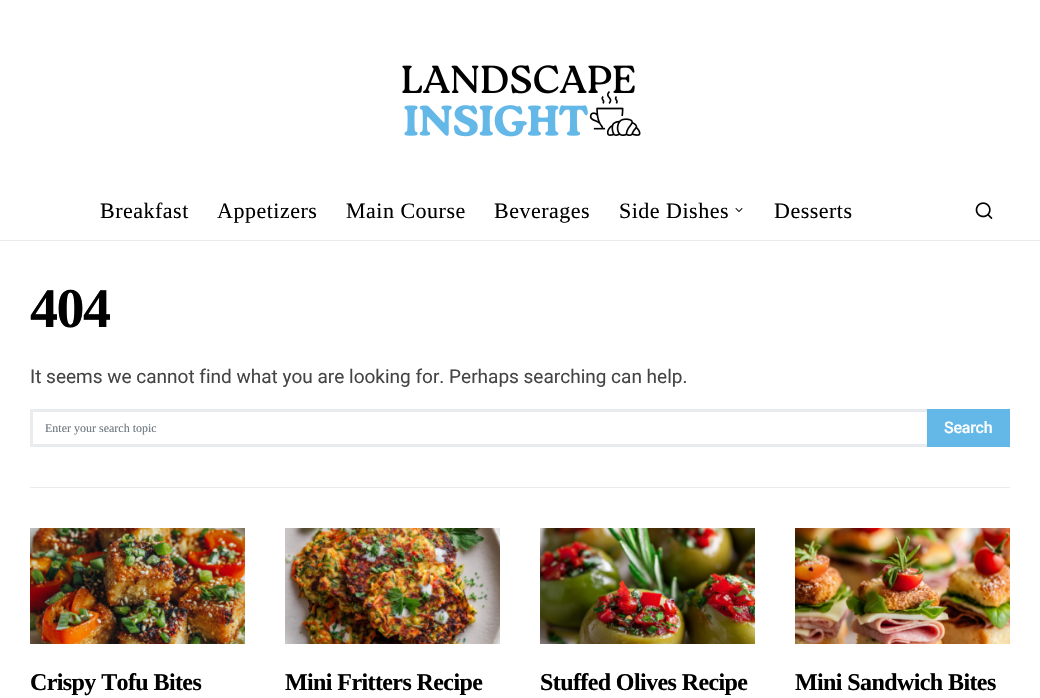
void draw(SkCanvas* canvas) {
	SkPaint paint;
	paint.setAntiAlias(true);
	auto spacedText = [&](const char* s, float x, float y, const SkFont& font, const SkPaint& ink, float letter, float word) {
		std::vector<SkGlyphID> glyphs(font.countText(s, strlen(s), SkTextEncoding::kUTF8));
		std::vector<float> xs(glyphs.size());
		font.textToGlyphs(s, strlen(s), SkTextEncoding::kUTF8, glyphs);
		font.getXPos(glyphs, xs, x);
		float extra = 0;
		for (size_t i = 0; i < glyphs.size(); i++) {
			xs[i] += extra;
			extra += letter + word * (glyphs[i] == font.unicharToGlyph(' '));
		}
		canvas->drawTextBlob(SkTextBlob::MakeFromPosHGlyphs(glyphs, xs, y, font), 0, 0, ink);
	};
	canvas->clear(0xffffffff);
	canvas->drawImageRect(SkImages::DeferredFromEncodedData(SkData::MakeFromFileName("img1.png")), SkRect::MakeXYWH(402, 65, 239, 72), SkSamplingOptions());
	paint.setColor(0xffe9ecef);
	canvas->drawRect(SkRect::MakeXYWH(0, 240, 1040, 1), paint);
	SkFont f1(fontMgr->matchFamilyStyle("Liberation Serif", SkFontStyle::Normal()), 22);
	f1.setSubpixel(true);
	paint.setColor(0xff000000);
	spacedText("Breakfast", 100, 218, f1, paint, 0.5, 0);
	spacedText("Appetizers", 217, 218, f1, paint, 0.5, 0);
	spacedText("Main Course", 346, 218, f1, paint, 0.5, 0);
	spacedText("Beverages", 494, 218, f1, paint, 0.5, 0);
	spacedText("Side Dishes", 619, 218, f1, paint, 0.5, 0);
	canvas->drawImageRect(SkImages::DeferredFromEncodedData(SkData::MakeFromFileName("img2.png")), SkRect::MakeXYWH(735, 208, 8, 4), SkSamplingOptions());
	spacedText("Desserts", 774, 218, f1, paint, 0.5, 0);
	canvas->drawImageRect(SkImages::DeferredFromEncodedData(SkData::MakeFromFileName("img3.png")), SkRect::MakeXYWH(975, 202, 18, 17), SkSamplingOptions());
	SkFont f2(fontMgr->matchFamilyStyle("Liberation Serif", SkFontStyle::Bold()), 56);
	f2.setSubpixel(true);
	spacedText("404", 30, 327, f2, paint, -1.5, 0);
	SkFont f3(fontMgr->matchFamilyStyle("Roboto", SkFontStyle::Normal()), 19);
	f3.setSubpixel(true);
	paint.setColor(0xff454545);
	canvas->drawString("It seems we cannot find what you are looking for. Perhaps searching can help.", 30, 383, f3, paint);
	paint.setColor(0xffe9ecef);
	canvas->drawRect(SkRect::MakeXYWH(30, 409, 897, 38), paint);
	paint.setColor(0xffffffff);
	canvas->drawRect(SkRect::MakeXYWH(33, 412, 894, 32), paint);
	SkFont f4(fontMgr->matchFamilyStyle("Liberation Serif", SkFontStyle::Normal()), 12);
	f4.setSubpixel(true);
	paint.setColor(0xff6c757d);
	canvas->drawString("Enter your search topic", 45, 432, f4, paint);
	paint.setColor(0xff63b8e8);
	canvas->drawRect(SkRect::MakeXYWH(927, 409, 83, 38), paint);
	SkFont f5(fontMgr->matchFamilyStyle("Roboto", SkFontStyle(500, SkFontStyle::kNormal_Width, SkFontStyle::kUpright_Slant)), 16);
	f5.setSubpixel(true);
	paint.setColor(0xffffffff);
	spacedText("Search", 944, 433, f5, paint, -0.25, 0);
	paint.setColor(0xffe9ecef);
	canvas->drawRect(SkRect::MakeXYWH(30, 487, 980, 1), paint);
	canvas->drawImageRect(SkImages::DeferredFromEncodedData(SkData::MakeFromFileName("img4.png")), SkRect::MakeXYWH(30, 528, 215, 116), SkSamplingOptions());
	SkFont f6(fontMgr->matchFamilyStyle("Liberation Serif", SkFontStyle::Bold()), 24);
	f6.setSubpixel(true);
	paint.setColor(0xff000000);
	spacedText("Crispy Tofu Bites", 30, 690, f6, paint, -0.6, 0);
	canvas->drawImageRect(SkImages::DeferredFromEncodedData(SkData::MakeFromFileName("img5.png")), SkRect::MakeXYWH(285, 528, 215, 116), SkSamplingOptions());
	spacedText("Mini Fritters Recipe", 285, 690, f6, paint, -0.6, 0);
	canvas->drawImageRect(SkImages::DeferredFromEncodedData(SkData::MakeFromFileName("img6.png")), SkRect::MakeXYWH(540, 528, 215, 116), SkSamplingOptions());
	spacedText("Stuffed Olives Recipe", 540, 690, f6, paint, -0.6, 0);
	canvas->drawImageRect(SkImages::DeferredFromEncodedData(SkData::MakeFromFileName("img7.png")), SkRect::MakeXYWH(795, 528, 215, 116), SkSamplingOptions());
	spacedText("Mini Sandwich Bites", 795, 690, f6, paint, -0.6, 0);
}
